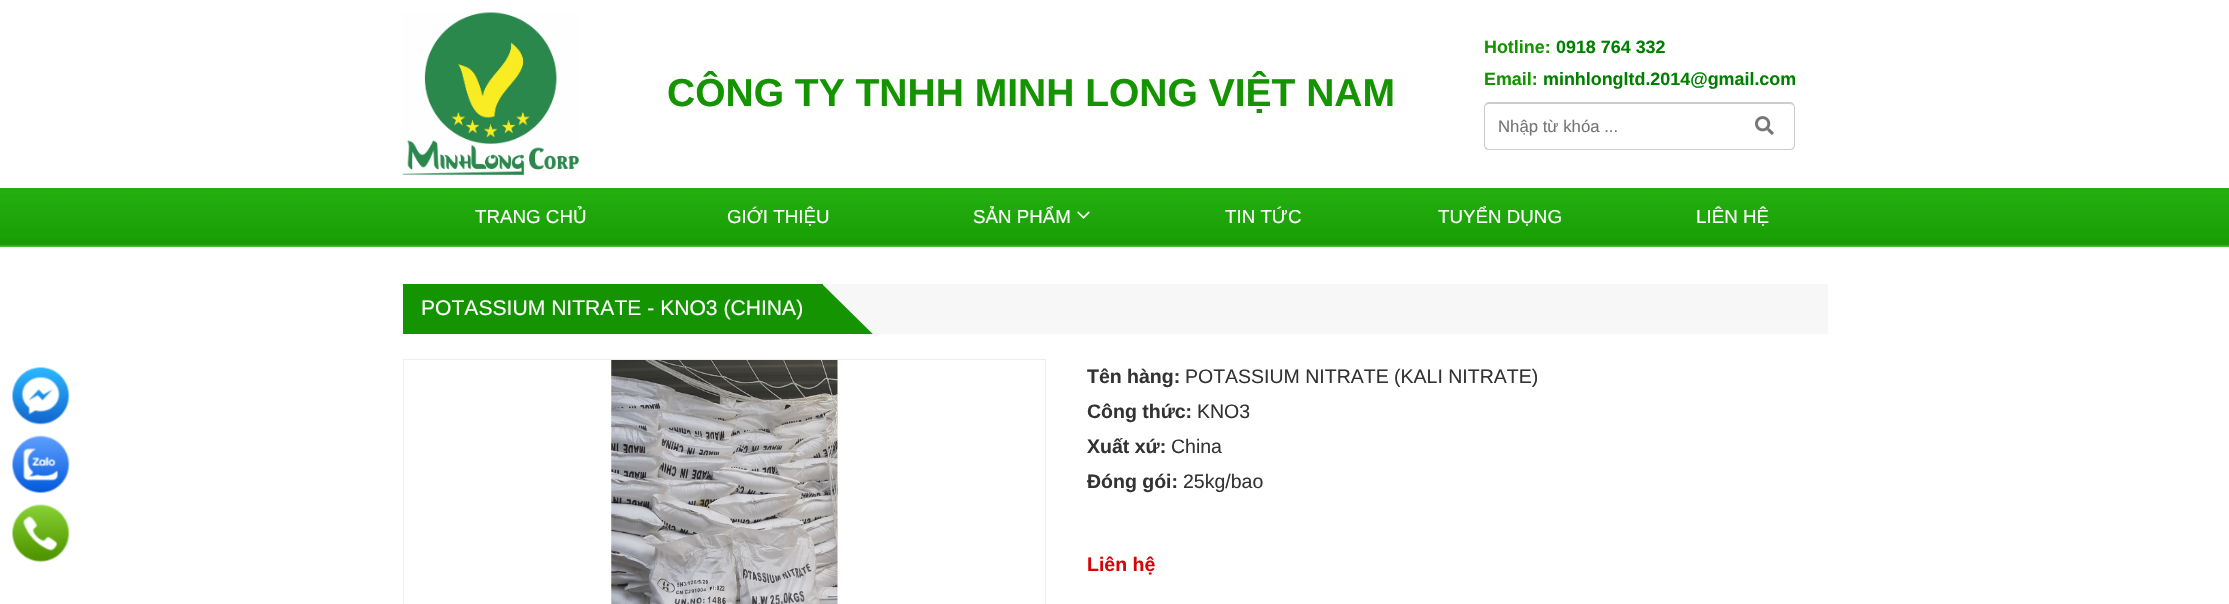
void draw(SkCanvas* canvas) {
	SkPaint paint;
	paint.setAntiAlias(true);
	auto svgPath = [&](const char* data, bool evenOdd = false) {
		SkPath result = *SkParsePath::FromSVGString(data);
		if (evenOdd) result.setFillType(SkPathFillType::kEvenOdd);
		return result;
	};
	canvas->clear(0xffffffff);
	canvas->drawImageRect(SkImages::DeferredFromEncodedData(SkData::MakeFromFileName("img1.png")), SkRect::MakeXYWH(12, 367, 58, 58), SkSamplingOptions());
	canvas->drawImageRect(SkImages::DeferredFromEncodedData(SkData::MakeFromFileName("img2.png")), SkRect::MakeXYWH(12, 435, 58, 58), SkSamplingOptions());
	canvas->drawImageRect(SkImages::DeferredFromEncodedData(SkData::MakeFromFileName("img3.png")), SkRect::MakeXYWH(12, 504, 58, 58), SkSamplingOptions());
	canvas->drawImageRect(SkImages::DeferredFromEncodedData(SkData::MakeFromFileName("img4.png")), SkRect::MakeXYWH(402, 12, 177, 163), SkSamplingOptions());
	SkFont f1(fontMgr->matchFamilyStyle("Liberation Sans", SkFontStyle::Bold()), 39);
	f1.setSubpixel(true);
	paint.setColor(0xff149401);
	canvas->drawString("CÔNG TY TNHH MINH LONG VIỆT NAM", 667, 106, f1, paint);
	SkFont f2(fontMgr->matchFamilyStyle("Liberation Sans", SkFontStyle::Bold()), 17.9);
	f2.setSubpixel(true);
	canvas->drawString("Hotline:", 1484, 53, f2, paint);
	paint.setColor(0xff008000);
	canvas->drawString("0918 764 332", 1556, 53, f2, paint);
	paint.setColor(0xff149401);
	canvas->drawString("Email:", 1484, 85, f2, paint);
	paint.setColor(0xff008000);
	canvas->drawString("minhlongltd.2014@gmail.com", 1543, 85, f2, paint);
	paint.setColor(0xffcccccc);
	canvas->drawPath(svgPath("M1489 102H1742V150H1489C1486 150 1484 148 1484 145V108C1484 105 1486 102 1489 102ZM1489 104H1742V149H1489C1487 149 1485 147 1485 145V108C1485 105 1487 104 1489 104Z", true), paint);
	SkFont f3(fontMgr->matchFamilyStyle("Liberation Sans", SkFontStyle::Normal()), 16.75);
	f3.setSubpixel(true);
	paint.setColor(0xff757575);
	canvas->drawString("Nhập từ khóa ...", 1498, 132, f3, paint);
	paint.setColor(0xffcccccc);
	canvas->drawPath(svgPath("M1742 102H1790C1793 102 1795 105 1795 108V145C1795 148 1793 150 1790 150H1742ZM1742 104H1790C1792 104 1794 105 1794 108V145C1794 147 1792 149 1790 149H1742Z", true), paint);
	canvas->drawImageRect(SkImages::DeferredFromEncodedData(SkData::MakeFromFileName("img5.png")), SkRect::MakeXYWH(1755, 116, 19, 19), SkSamplingOptions());
	canvas->drawImageRect(SkImages::DeferredFromEncodedData(SkData::MakeFromFileName("img6.png")), SkRect::MakeXYWH(0, 188, 2229, 59), SkSamplingOptions());
	SkFont f4(fontMgr->matchFamilyStyle("Liberation Sans", SkFontStyle::Normal()), 18.75);
	f4.setSubpixel(true);
	paint.setColor(0xffffffff);
	canvas->drawString("TRANG CHỦ", 475, 223, f4, paint);
	canvas->drawString("GIỚI THIỆU", 727, 223, f4, paint);
	canvas->drawString("SẢN PHẨM", 973, 223, f4, paint);
	canvas->drawImageRect(SkImages::DeferredFromEncodedData(SkData::MakeFromFileName("img7.png")), SkRect::MakeXYWH(1077, 211, 13, 8), SkSamplingOptions());
	canvas->drawString("TIN TỨC", 1225, 223, f4, paint);
	canvas->drawString("TUYỂN DỤNG", 1438, 223, f4, paint);
	canvas->drawString("LIÊN HỆ", 1696, 223, f4, paint);
	paint.setColor(0xfff7f7f7);
	canvas->drawRect(SkRect::MakeXYWH(823, 284, 1005, 50), paint);
	paint.setColor(0xff149401);
	canvas->drawRect(SkRect::MakeXYWH(403, 284, 420, 50), paint);
	SkFont f5(fontMgr->matchFamilyStyle("Liberation Sans", SkFontStyle::Normal()), 21.1);
	f5.setSubpixel(true);
	paint.setColor(0xffffffff);
	canvas->drawString("POTASSIUM NITRATE - KNO3 (CHINA)", 421, 315, f5, paint);
	canvas->save();
	canvas->clipRect(SkRect::MakeXYWH(403, 284, 1425, 50));
	paint.setColor(0xff149401);
	canvas->drawPath(svgPath("M822 346V284L885 346Z"), paint);
	canvas->restore();
	paint.setStroke(true);
	paint.setStrokeWidth(1);
	paint.setColor(0xffeeeeee);
	canvas->drawRect(SkRect::MakeXYWH(403.5, 359.5, 642, 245), paint);
	canvas->drawImageRect(SkImages::DeferredFromEncodedData(SkData::MakeFromFileName("img8.png")), SkRect::MakeXYWH(611, 360, 227, 244), SkSamplingOptions());
	SkFont f6(fontMgr->matchFamilyStyle("Liberation Sans", SkFontStyle::Bold()), 19.5);
	f6.setSubpixel(true);
	paint.setStroke(false);
	paint.setColor(0xff333333);
	canvas->drawString("Tên hàng:", 1087, 383, f6, paint);
	SkFont f7(fontMgr->matchFamilyStyle("Liberation Sans", SkFontStyle::Normal()), 19.5);
	f7.setSubpixel(true);
	canvas->drawString("POTASSIUM NITRATE (KALI NITRATE)", 1185, 383, f7, paint);
	canvas->drawString("Công thức:", 1087, 418, f6, paint);
	canvas->drawString("KNO3", 1197, 418, f7, paint);
	canvas->drawString("Xuất xứ:", 1087, 453, f6, paint);
	canvas->drawString("China", 1171, 453, f7, paint);
	canvas->drawString("Đóng gói:", 1087, 488, f6, paint);
	canvas->drawString("25kg/bao", 1183, 488, f7, paint);
	paint.setColor(0xffd20707);
	canvas->drawString("Liên hệ", 1087, 571, f6, paint);
}
